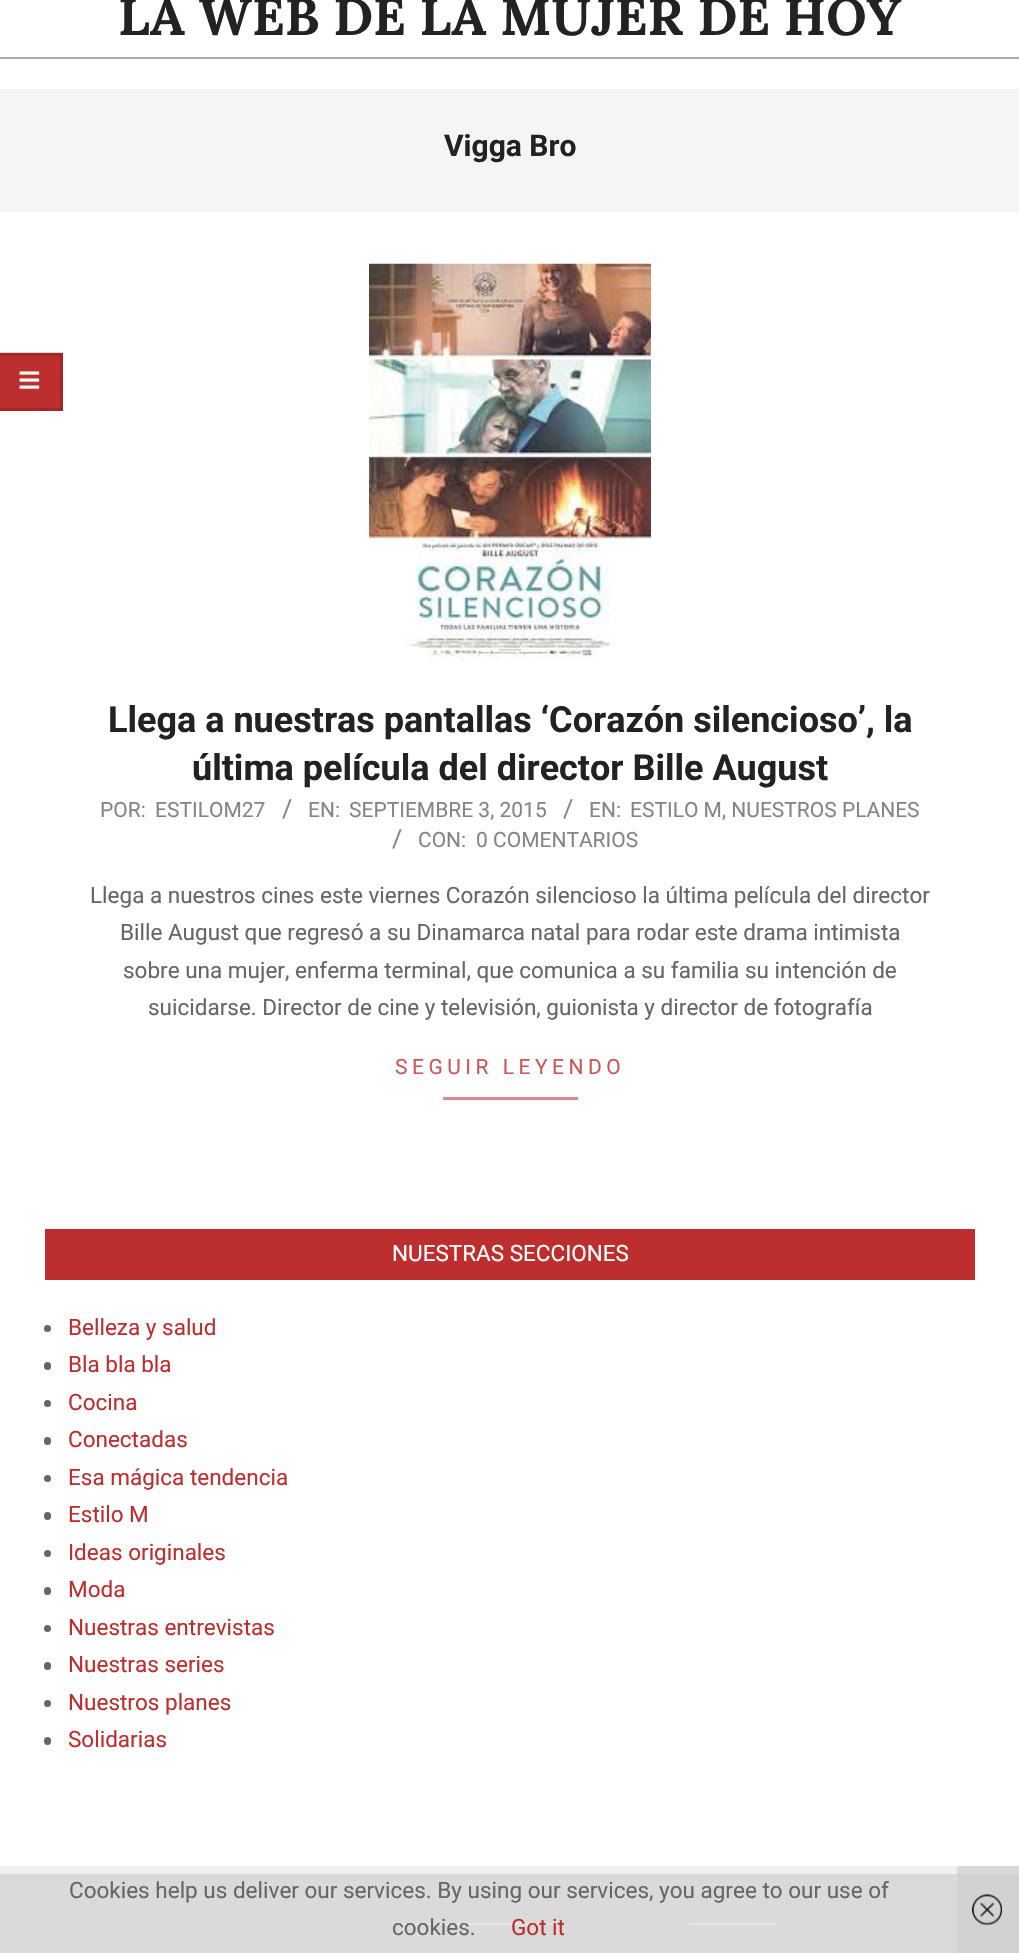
void draw(SkCanvas* canvas) {
	SkPaint paint;
	paint.setAntiAlias(true);
	auto spacedText = [&](const char* s, float x, float y, const SkFont& font, const SkPaint& ink, float letter, float word) {
		std::vector<SkGlyphID> glyphs(font.countText(s, strlen(s), SkTextEncoding::kUTF8));
		std::vector<float> xs(glyphs.size());
		font.textToGlyphs(s, strlen(s), SkTextEncoding::kUTF8, glyphs);
		font.getXPos(glyphs, xs, x);
		float extra = 0;
		for (size_t i = 0; i < glyphs.size(); i++) {
			xs[i] += extra;
			extra += letter + word * (glyphs[i] == font.unicharToGlyph(' '));
		}
		canvas->drawTextBlob(SkTextBlob::MakeFromPosHGlyphs(glyphs, xs, y, font), 0, 0, ink);
	};
	auto svgPath = [&](const char* data, bool evenOdd = false) {
		SkPath result = *SkParsePath::FromSVGString(data);
		if (evenOdd) result.setFillType(SkPathFillType::kEvenOdd);
		return result;
	};
	canvas->clear(0xffffffff);
	paint.setColor(0xfff0f0f0);
	canvas->drawRect(SkRect::MakeXYWH(0, 1866, 957, 8), paint);
	paint.setColor(0xffdadada);
	canvas->drawRect(SkRect::MakeXYWH(957, 1866, 62, 8), paint);
	SkFont f1(fontMgr->matchFamilyStyle("Lora", SkFontStyle::Bold()), 52.5);
	f1.setSubpixel(true);
	paint.setColor(0xff222222);
	canvas->drawString("LA WEB DE LA MUJER DE HOY", 118, 35, f1, paint);
	paint.setColor(0xffababab);
	canvas->drawRect(SkRect::MakeXYWH(0, 57, 1019, 2), paint);
	paint.setColor(0xffbd2e2e);
	canvas->drawRect(SkRect::MakeXYWH(0, 353, 63, 58), paint);
	paint.setColor(0x24000000);
	canvas->drawPath(svgPath("M0 352H63L60 356H0Z"), paint);
	canvas->drawPath(svgPath("M63 352V411L60 408V356Z"), paint);
	canvas->drawPath(svgPath("M63 411H0V408H60Z"), paint);
	canvas->drawImageRect(SkImages::DeferredFromEncodedData(SkData::MakeFromFileName("img1.png")), SkRect::MakeXYWH(19, 371, 21, 18), SkSamplingOptions());
	paint.setColor(0xfff5f5f5);
	canvas->drawRect(SkRect::MakeXYWH(0, 89, 1019, 123), paint);
	SkFont f2(fontMgr->matchFamilyStyle("Roboto", SkFontStyle::Bold()), 30);
	f2.setSubpixel(true);
	paint.setColor(0xff222222);
	canvas->drawString("Vigga Bro", 444, 156, f2, paint);
	canvas->drawImageRect(SkImages::DeferredFromEncodedData(SkData::MakeFromFileName("img2.png")), SkRect::MakeXYWH(369, 263, 282, 397), SkSamplingOptions());
	SkFont f3(fontMgr->matchFamilyStyle("Roboto", SkFontStyle::Bold()), 36);
	f3.setSubpixel(true);
	canvas->drawString("Llega a nuestras pantallas ‘Corazón silencioso’, la", 108, 732, f3, paint);
	canvas->drawString("última película del director Bille August", 192, 780, f3, paint);
	SkFont f4(fontMgr->matchFamilyStyle("Roboto", SkFontStyle::Normal()), 21);
	f4.setSubpixel(true);
	paint.setColor(0xff858585);
	canvas->drawString("POR:", 100, 817, f4, paint);
	canvas->drawString("ESTILOM27", 155, 817, f4, paint);
	SkFont f5(fontMgr->matchFamilyStyle("Roboto", SkFontStyle::Normal()), 25);
	f5.setSubpixel(true);
	canvas->drawString("/", 282, 817, f5, paint);
	canvas->drawString("EN:", 308, 817, f4, paint);
	canvas->drawString("SEPTIEMBRE 3, 2015", 349, 817, f4, paint);
	canvas->drawString("/", 563, 817, f5, paint);
	canvas->drawString("EN:", 589, 817, f4, paint);
	canvas->drawString("ESTILO M, NUESTROS PLANES", 630, 817, f4, paint);
	canvas->drawString("/", 392, 847, f5, paint);
	canvas->drawString("CON:", 418, 847, f4, paint);
	canvas->drawString("0 COMENTARIOS", 476, 847, f4, paint);
	SkFont f6(fontMgr->matchFamilyStyle("Roboto", SkFontStyle::Normal()), 22.5);
	f6.setSubpixel(true);
	paint.setColor(0xff666666);
	canvas->drawString("Llega a nuestros cines este viernes Corazón silencioso la última película del director", 90, 903, f6, paint);
	canvas->drawString("Bille August que regresó a su Dinamarca natal para rodar este drama intimista", 120, 940, f6, paint);
	canvas->drawString("sobre una mujer, enferma terminal, que comunica a su familia su intención de", 123, 978, f6, paint);
	canvas->drawString("suicidarse. Director de cine y televisión, guionista y director de fotografía", 148, 1015, f6, paint);
	paint.setColor(0xffca5858);
	spacedText("SEGUIR LEYENDO", 395, 1074, f4, paint, 4.5, 0);
	paint.setColor(0xffda8a8a);
	canvas->drawRect(SkRect::MakeXYWH(443, 1097, 135, 3), paint);
	paint.setColor(0xffbd2e2e);
	canvas->drawRect(SkRect::MakeXYWH(45, 1229, 930, 51), paint);
	paint.setColor(0xffffffff);
	canvas->drawString("NUESTRAS SECCIONES", 392, 1261, f6, paint);
	paint.setColor(0xff666666);
	canvas->drawCircle(47.5, 1328.5, 3.5, paint);
	paint.setColor(0xffbd2e2e);
	canvas->drawString("Belleza y salud", 68, 1335, f6, paint);
	paint.setColor(0xff666666);
	canvas->drawRoundRect(SkRect::MakeXYWH(44, 1362, 7, 8), 3.5, 3.5, paint);
	paint.setColor(0xffbd2e2e);
	canvas->drawString("Bla bla bla", 68, 1372, f6, paint);
	paint.setColor(0xff666666);
	canvas->drawCircle(47.5, 1403.5, 3.5, paint);
	paint.setColor(0xffbd2e2e);
	canvas->drawString("Cocina", 68, 1410, f6, paint);
	paint.setColor(0xff666666);
	canvas->drawRoundRect(SkRect::MakeXYWH(44, 1437, 7, 8), 3.5, 3.5, paint);
	paint.setColor(0xffbd2e2e);
	canvas->drawString("Conectadas", 68, 1447, f6, paint);
	paint.setColor(0xff666666);
	canvas->drawCircle(47.5, 1478.5, 3.5, paint);
	paint.setColor(0xffbd2e2e);
	canvas->drawString("Esa mágica tendencia", 68, 1485, f6, paint);
	paint.setColor(0xff666666);
	canvas->drawRoundRect(SkRect::MakeXYWH(44, 1512, 7, 8), 3.5, 3.5, paint);
	paint.setColor(0xffbd2e2e);
	canvas->drawString("Estilo M", 68, 1522, f6, paint);
	paint.setColor(0xff666666);
	canvas->drawCircle(47.5, 1553.5, 3.5, paint);
	paint.setColor(0xffbd2e2e);
	canvas->drawString("Ideas originales", 68, 1560, f6, paint);
	paint.setColor(0xff666666);
	canvas->drawRoundRect(SkRect::MakeXYWH(44, 1587, 7, 8), 3.5, 3.5, paint);
	paint.setColor(0xffbd2e2e);
	canvas->drawString("Moda", 68, 1597, f6, paint);
	paint.setColor(0xff666666);
	canvas->drawCircle(47.5, 1628.5, 3.5, paint);
	paint.setColor(0xffbd2e2e);
	canvas->drawString("Nuestras entrevistas", 68, 1635, f6, paint);
	paint.setColor(0xff666666);
	canvas->drawRoundRect(SkRect::MakeXYWH(44, 1662, 7, 8), 3.5, 3.5, paint);
	paint.setColor(0xffbd2e2e);
	canvas->drawString("Nuestras series", 68, 1672, f6, paint);
	paint.setColor(0xff666666);
	canvas->drawCircle(47.5, 1703.5, 3.5, paint);
	paint.setColor(0xffbd2e2e);
	canvas->drawString("Nuestros planes", 68, 1710, f6, paint);
	paint.setColor(0xff666666);
	canvas->drawRoundRect(SkRect::MakeXYWH(44, 1737, 7, 8), 3.5, 3.5, paint);
	paint.setColor(0xffbd2e2e);
	canvas->drawString("Solidarias", 68, 1747, f6, paint);
	paint.setColor(0xffdadada);
	canvas->drawRect(SkRect::MakeXYWH(0, 1876, 957, 77), paint);
	paint.setColor(0xffd2d2d2);
	canvas->drawRect(SkRect::MakeXYWH(957, 1876, 62, 77), paint);
	paint.setColor(0xffd9d9d9);
	canvas->drawRect(SkRect::MakeXYWH(0, 1874, 957, 2), paint);
	paint.setColor(0xffd1d1d1);
	canvas->drawRect(SkRect::MakeXYWH(957, 1874, 62, 2), paint);
	paint.setColor(0xffe5e5e5);
	canvas->drawRect(SkRect::MakeXYWH(402, 1923, 164, 2), paint);
	canvas->drawRect(SkRect::MakeXYWH(689, 1923, 87, 2), paint);
	paint.setColor(0xff666666);
	canvas->drawString("Cookies help us deliver our services. By using our services, you agree to our use of", 69, 1898, f6, paint);
	canvas->drawString("cookies.", 392, 1935, f6, paint);
	paint.setColor(0xffbd2e2e);
	canvas->drawString("Got it", 511, 1935, f6, paint);
	canvas->drawImageRect(SkImages::DeferredFromEncodedData(SkData::MakeFromFileName("img3.png")), SkRect::MakeXYWH(972, 1894, 30, 32), SkSamplingOptions());
}
